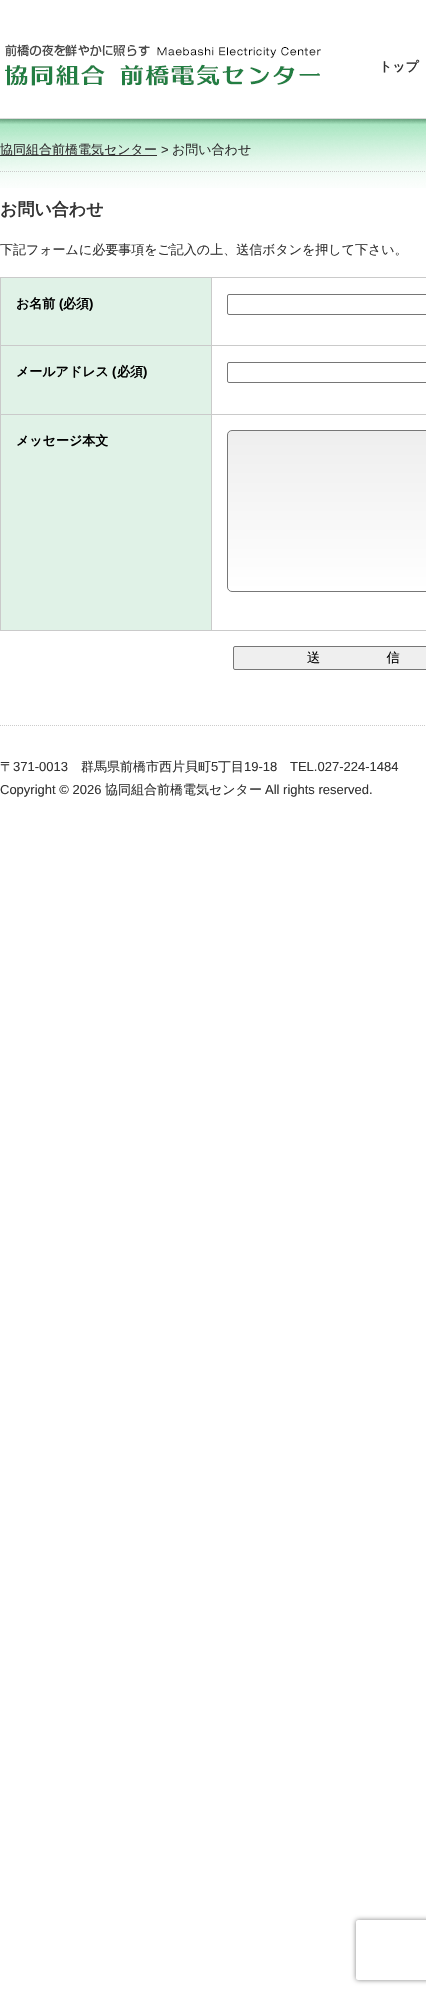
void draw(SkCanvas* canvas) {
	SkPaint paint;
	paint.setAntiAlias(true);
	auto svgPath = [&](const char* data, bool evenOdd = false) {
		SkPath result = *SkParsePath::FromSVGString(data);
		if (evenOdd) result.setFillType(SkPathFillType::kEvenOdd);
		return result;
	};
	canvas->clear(0xffffffff);
	canvas->drawImageRect(SkImages::DeferredFromEncodedData(SkData::MakeFromFileName("img1.png")), SkRect::MakeXYWH(0, 118, 426, 70), SkSamplingOptions());
	canvas->drawImageRect(SkImages::DeferredFromEncodedData(SkData::MakeFromFileName("img2.png")), SkRect::MakeXYWH(5, 44, 316, 42), SkSamplingOptions());
	SkFont f1(fontMgr->matchFamilyStyle("WenQuanYi Zen Hei", SkFontStyle::Bold()), 13);
	f1.setSubpixel(true);
	paint.setColor(0xff333333);
	canvas->drawString("トップ", 379, 71, f1, paint);
	paint.setStroke(true);
	paint.setStrokeWidth(1);
	paint.setColor(0xffcccccc);
	paint.setPathEffect(SkDashPathEffect::Make({{1, 1}}, 0));
	canvas->drawPath(svgPath("M0 171.5H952"), paint);
	paint.setPathEffect(nullptr);
	paint.setStroke(false);
	paint.setColor(0xff333333);
	canvas->drawRect(SkRect::MakeXYWH(0, 155, 157, 1), paint);
	SkFont f2(fontMgr->matchFamilyStyle("WenQuanYi Zen Hei", SkFontStyle(500, SkFontStyle::kNormal_Width, SkFontStyle::kUpright_Slant)), 13);
	f2.setSubpixel(true);
	canvas->drawString("協同組合前橋電気センター", 0, 154, f2, paint);
	SkFont f3(fontMgr->matchFamilyStyle("Liberation Sans", SkFontStyle::Normal()), 13);
	f3.setSubpixel(true);
	canvas->drawString(">", 161, 154, f3, paint);
	canvas->drawString("お問い合わせ", 172, 154, f2, paint);
	SkFont f4(fontMgr->matchFamilyStyle("WenQuanYi Zen Hei", SkFontStyle::Bold()), 17);
	f4.setSubpixel(true);
	canvas->drawString("お問い合わせ", 0, 215, f4, paint);
	canvas->drawString("下記フォームに必要事項をご記入の上、送信ボタンを押して下さい。", 0, 254, f2, paint);
	paint.setColor(0xffcacaca);
	canvas->drawRect(SkRect::MakeXYWH(0, 277, 426, 1), paint);
	canvas->drawRect(SkRect::MakeXYWH(0, 630, 426, 1), paint);
	canvas->drawRect(SkRect::MakeXYWH(0, 277, 1, 354), paint);
	paint.setColor(0xffe0f2e7);
	canvas->drawRect(SkRect::MakeXYWH(1, 278, 210, 67), paint);
	paint.setColor(0xff000000);
	canvas->drawString("お名前", 16, 308, f1, paint);
	SkFont f5(fontMgr->matchFamilyStyle("Liberation Sans", SkFontStyle::Bold()), 13);
	f5.setSubpixel(true);
	canvas->drawString("(", 59, 308, f5, paint);
	canvas->drawString("必須", 63, 308, f1, paint);
	canvas->drawString(")", 89, 308, f5, paint);
	paint.setColor(0xffcacaca);
	canvas->drawRect(SkRect::MakeXYWH(211, 345, 215, 1), paint);
	canvas->drawRect(SkRect::MakeXYWH(211, 414, 215, 1), paint);
	canvas->drawRect(SkRect::MakeXYWH(211, 414, 1, 217), paint);
	canvas->drawRect(SkRect::MakeXYWH(0, 414, 212, 1), paint);
	canvas->drawRect(SkRect::MakeXYWH(211, 345, 1, 70), paint);
	canvas->drawRect(SkRect::MakeXYWH(0, 345, 212, 1), paint);
	canvas->drawRect(SkRect::MakeXYWH(211, 277, 1, 69), paint);
	paint.setStroke(true);
	paint.setColor(0xff767676);
	canvas->drawRoundRect(SkRect::MakeXYWH(227.5, 294.5, 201, 20), 1.5, 1.5, paint);
	paint.setStroke(false);
	paint.setColor(0xffe0f2e7);
	canvas->drawRect(SkRect::MakeXYWH(1, 346, 210, 68), paint);
	paint.setColor(0xff000000);
	canvas->drawString("メールアドレス", 16, 376, f1, paint);
	canvas->drawString("(", 112, 376, f5, paint);
	canvas->drawString("必須", 117, 376, f1, paint);
	canvas->drawString(")", 143, 376, f5, paint);
	paint.setStroke(true);
	paint.setColor(0xff767676);
	canvas->drawRoundRect(SkRect::MakeXYWH(227.5, 362.5, 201, 20), 1.5, 1.5, paint);
	paint.setStroke(false);
	paint.setColor(0xffe0f2e7);
	canvas->drawRect(SkRect::MakeXYWH(1, 415, 210, 215), paint);
	paint.setColor(0xff000000);
	canvas->drawString("メッセージ本文", 16, 445, f1, paint);
	canvas->save();
	canvas->clipPath(svgPath("M232 430H571C574 430 576 432 576 435V587C576 590 574 592 571 592H232C229 592 227 590 227 587V435C227 432 229 430 232 430Z"), true);
	{
		const SkColor colors[] = {0xffeeeeee, 0xffffffff};
		const float stops[] = {0, 1};
		const SkPoint ends[] = {{228, 431}, {228, 591}};
		paint.setShader(SkGradientShader::MakeLinear(ends, colors, stops, 2, SkTileMode::kClamp));
		paint.setAlpha(255);
	}
	canvas->drawRect(SkRect::MakeXYWH(227, 431, 199, 160), paint);
	canvas->restore();
	paint.setStroke(true);
	paint.setShader(nullptr);
	paint.setColor(0xff777777);
	canvas->drawRoundRect(SkRect::MakeXYWH(227.5, 430.5, 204, 161), 4.5, 4.5, paint);
	paint.setStroke(false);
	paint.setColor(0xffefefef);
	canvas->drawRoundRect(SkRect::MakeXYWH(233.5, 646.5, 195, 23), 1.5, 1.5, paint);
	paint.setStroke(true);
	paint.setColor(0xff767676);
	canvas->drawRoundRect(SkRect::MakeXYWH(233.5, 646.5, 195, 23), 1.5, 1.5, paint);
	SkFont f6(fontMgr->matchFamilyStyle("WenQuanYi Zen Hei", SkFontStyle(500, SkFontStyle::kNormal_Width, SkFontStyle::kUpright_Slant)), 13.25);
	f6.setSubpixel(true);
	paint.setStroke(false);
	paint.setColor(0xff000000);
	canvas->drawString("送　　　　　信", 307, 662, f6, paint);
	paint.setStroke(true);
	paint.setColor(0xffcccccc);
	paint.setPathEffect(SkDashPathEffect::Make({{1, 1}}, 0));
	canvas->drawPath(svgPath("M0 725.5H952"), paint);
	paint.setPathEffect(nullptr);
	paint.setStroke(false);
	paint.setColor(0xff333333);
	canvas->drawString("〒", 0, 771, f2, paint);
	canvas->drawString("371-0013", 13, 771, f3, paint);
	canvas->drawString("群馬県前橋市西片貝町", 81, 771, f2, paint);
	canvas->drawString("5", 211, 771, f3, paint);
	canvas->drawString("丁目", 218, 771, f2, paint);
	canvas->drawString("19-18", 244, 771, f3, paint);
	canvas->drawString("TEL.027-224-1484", 290, 771, f3, paint);
	canvas->drawString("Copyright © 2026", 0, 794, f3, paint);
	canvas->drawString("協同組合前橋電気センター", 105, 794, f2, paint);
	canvas->drawString("All rights reserved.", 265, 794, f3, paint);
	canvas->save();
	canvas->clipPath(svgPath("M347 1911H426V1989H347ZM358 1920H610C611 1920 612 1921 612 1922V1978C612 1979 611 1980 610 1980H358C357 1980 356 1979 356 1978V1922C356 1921 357 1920 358 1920Z", true), true);
	paint.setColor(0xff808080);
	paint.setMaskFilter(SkMaskFilter::MakeBlur(kNormal_SkBlurStyle, 2.5));
	canvas->drawRoundRect(SkRect::MakeXYWH(356, 1920, 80, 60), 2, 2, paint);
	paint.setMaskFilter(nullptr);
	canvas->restore();
}
